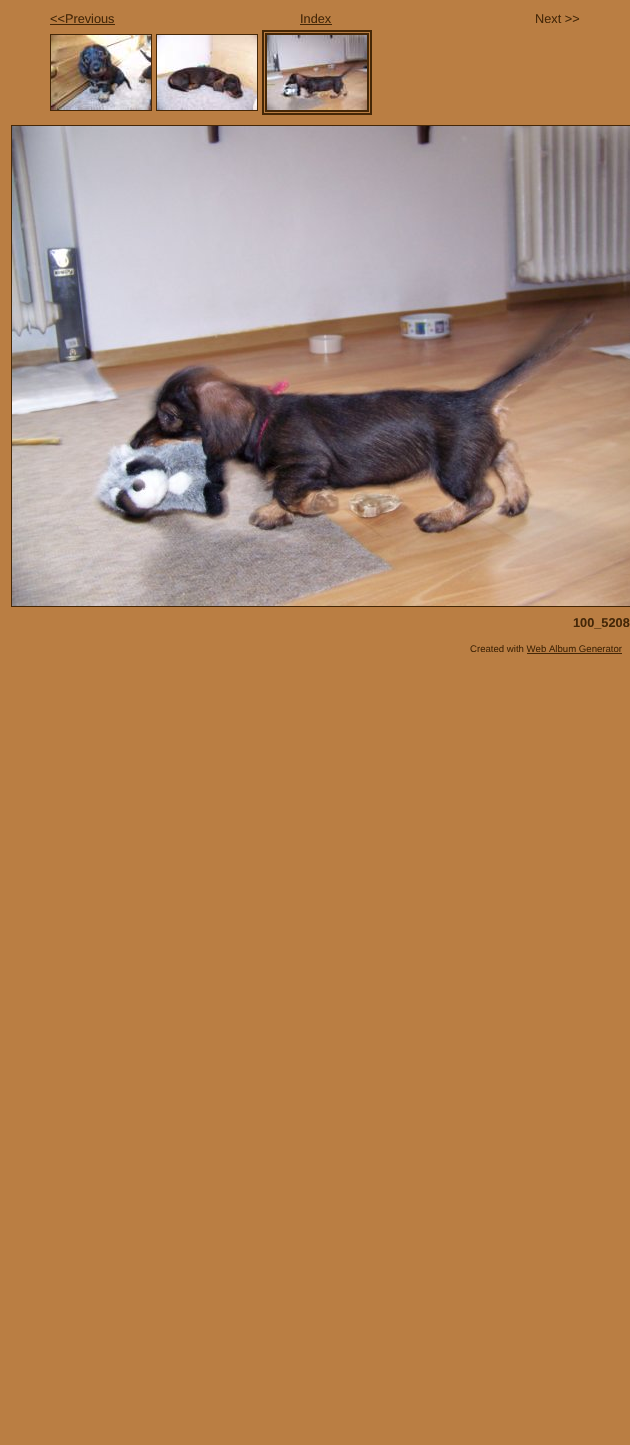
void draw(SkCanvas* canvas) {
	SkPaint paint;
	paint.setAntiAlias(true);
	canvas->clear(0xffba7e43);
	SkFont f1(fontMgr->matchFamilyStyle("Liberation Sans", SkFontStyle::Normal()), 12.75);
	f1.setSubpixel(true);
	paint.setColor(0xff452707);
	canvas->drawString("<<Previous", 50, 23, f1, paint);
	canvas->drawRect(SkRect::MakeXYWH(50, 24, 65, 1), paint);
	canvas->drawString("Index", 300, 23, f1, paint);
	canvas->drawRect(SkRect::MakeXYWH(300, 24, 32, 1), paint);
	canvas->drawString("Next >>", 535, 23, f1, paint);
	paint.setStroke(true);
	paint.setStrokeWidth(1);
	canvas->drawRect(SkRect::MakeXYWH(50.5, 34.5, 101, 76), paint);
	canvas->drawImageRect(SkImages::DeferredFromEncodedData(SkData::MakeFromFileName("img1.png")), SkRect::MakeXYWH(51, 35, 100, 75), SkSamplingOptions());
	canvas->drawRect(SkRect::MakeXYWH(156.5, 34.5, 101, 76), paint);
	canvas->drawImageRect(SkImages::DeferredFromEncodedData(SkData::MakeFromFileName("img2.png")), SkRect::MakeXYWH(157, 35, 100, 75), SkSamplingOptions());
	paint.setStrokeWidth(2);
	canvas->drawRect(SkRect::MakeXYWH(263, 31, 108, 83), paint);
	canvas->drawRect(SkRect::MakeXYWH(266, 34, 102, 77), paint);
	canvas->drawImageRect(SkImages::DeferredFromEncodedData(SkData::MakeFromFileName("img3.png")), SkRect::MakeXYWH(267, 35, 100, 75), SkSamplingOptions());
	paint.setStrokeWidth(1);
	canvas->drawRect(SkRect::MakeXYWH(11.5, 125.5, 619, 481), paint);
	canvas->drawImageRect(SkImages::DeferredFromEncodedData(SkData::MakeFromFileName("img4.png")), SkRect::MakeXYWH(12, 126, 618, 480), SkSamplingOptions());
	SkFont f2(fontMgr->matchFamilyStyle("Liberation Sans", SkFontStyle::Bold()), 12.75);
	f2.setSubpixel(true);
	paint.setStroke(false);
	canvas->drawString("100_5208", 573, 627, f2, paint);
	SkFont f3(fontMgr->matchFamilyStyle("Liberation Sans", SkFontStyle::Normal()), 9.6);
	f3.setSubpixel(true);
	canvas->drawString("Created with Web Album Generator", 470, 652, f3, paint);
	canvas->drawRect(SkRect::MakeXYWH(527, 653, 95, 1), paint);
}
